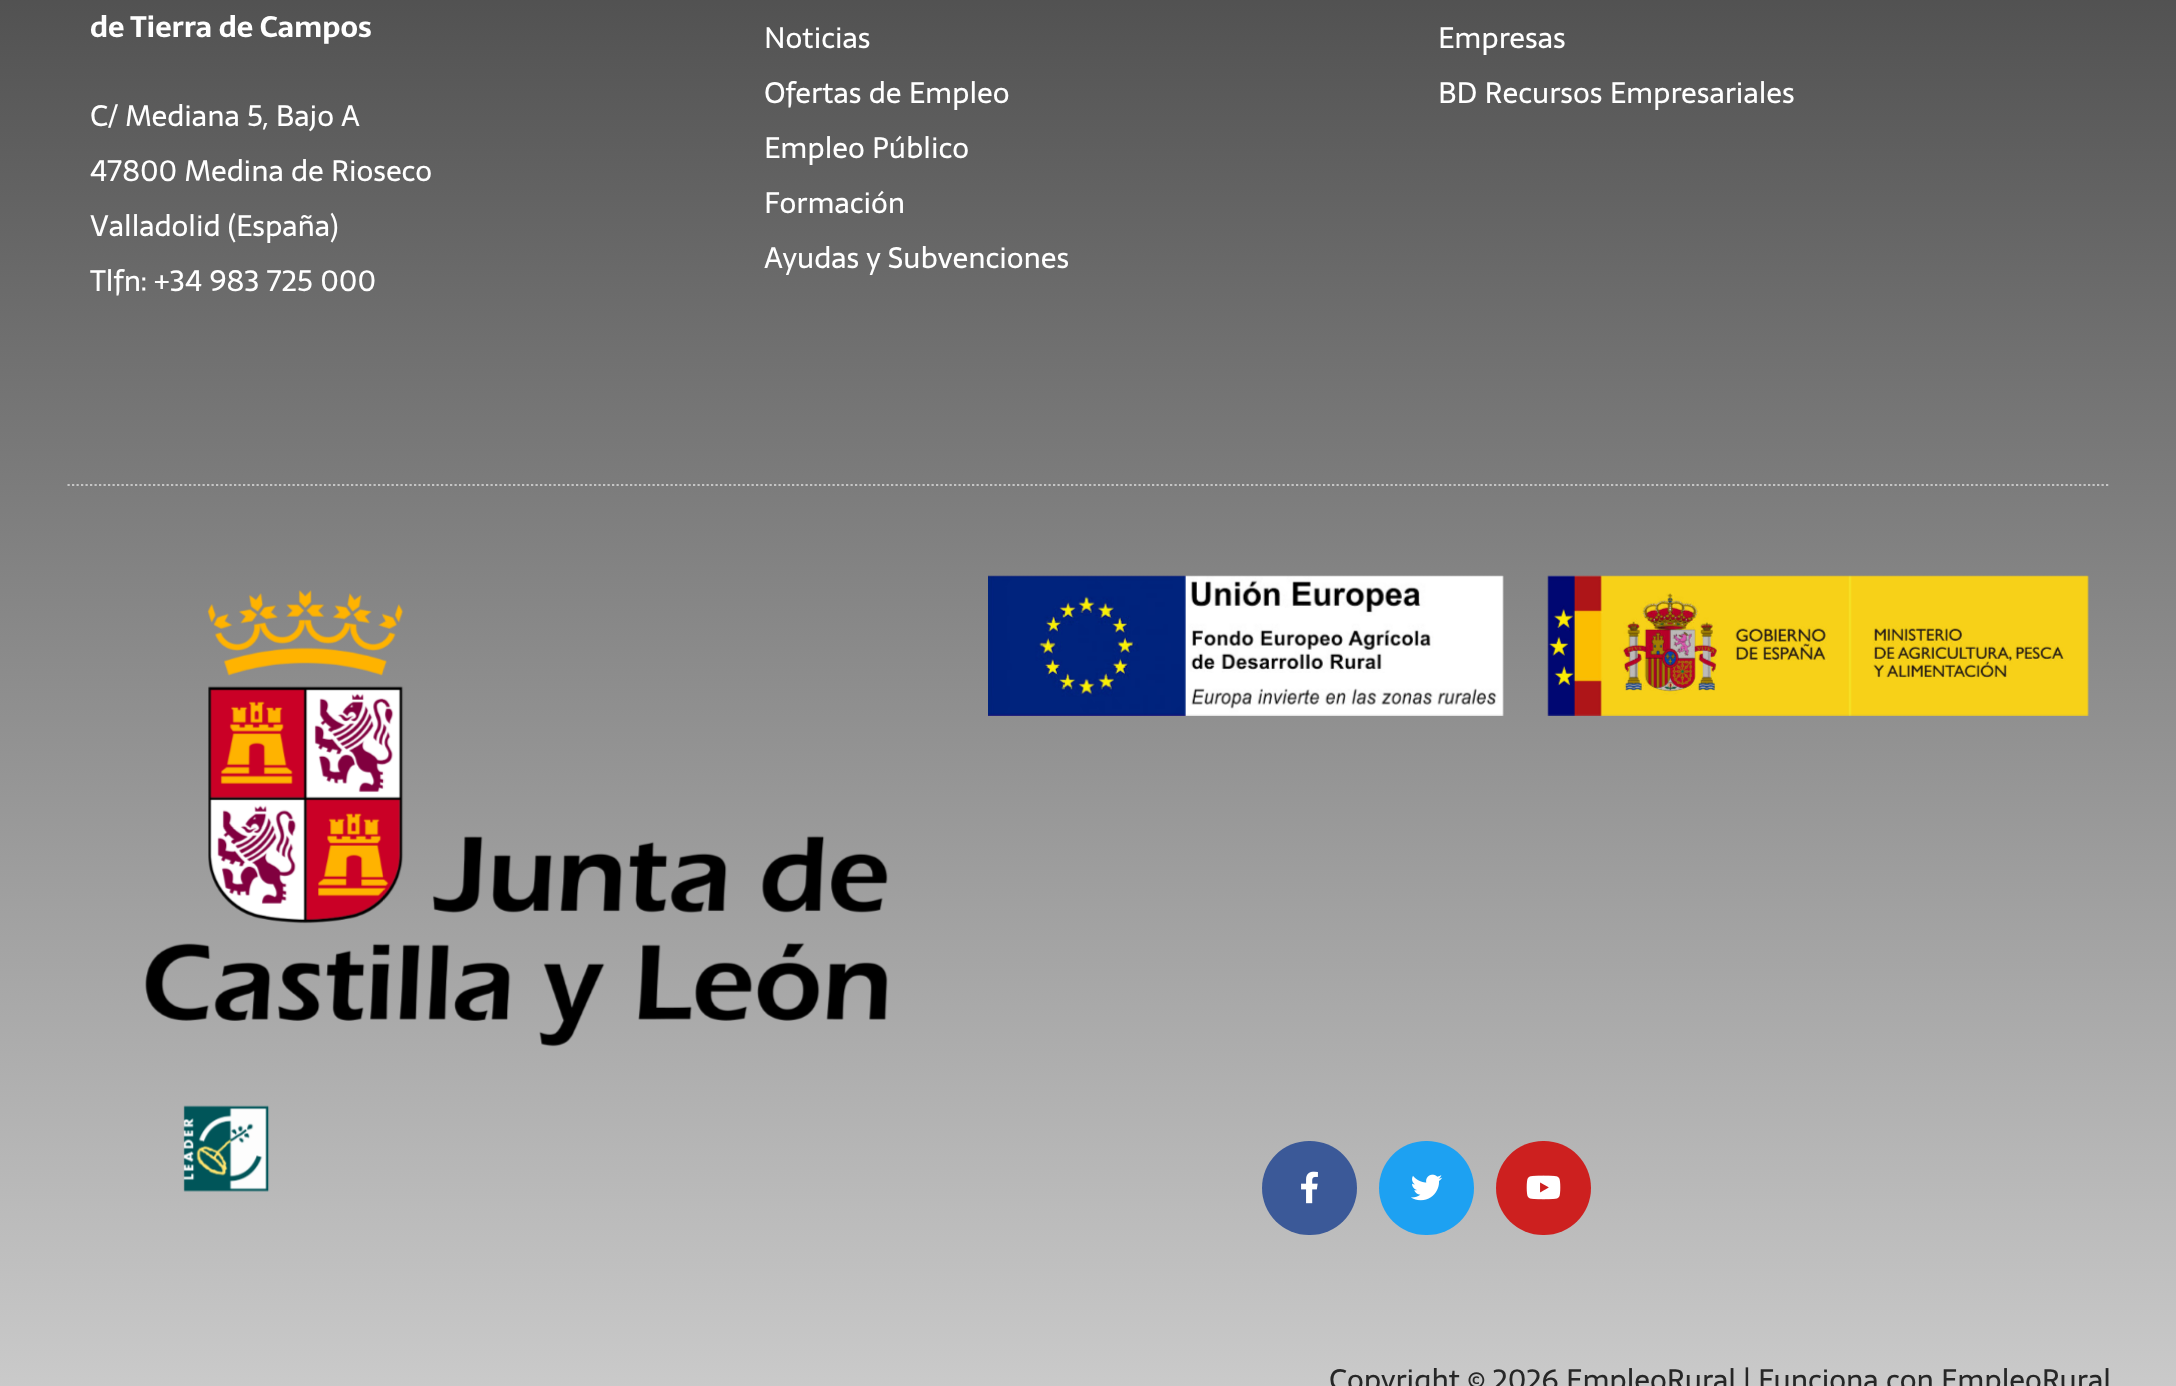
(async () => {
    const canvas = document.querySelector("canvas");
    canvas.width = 2176;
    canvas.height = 1386;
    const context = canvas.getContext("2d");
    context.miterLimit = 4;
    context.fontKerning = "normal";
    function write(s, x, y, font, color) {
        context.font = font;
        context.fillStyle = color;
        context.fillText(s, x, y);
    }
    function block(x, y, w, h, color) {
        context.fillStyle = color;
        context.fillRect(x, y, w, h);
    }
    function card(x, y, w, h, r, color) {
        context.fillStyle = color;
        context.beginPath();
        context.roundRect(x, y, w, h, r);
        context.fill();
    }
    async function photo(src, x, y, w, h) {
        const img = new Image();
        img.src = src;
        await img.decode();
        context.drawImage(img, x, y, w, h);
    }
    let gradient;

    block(0, 0, 2176, 1386, "rgb(255, 255, 255)");
    gradient = context.createLinearGradient(1089, 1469, 1089, -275);
    gradient.addColorStop(0, "rgb(209, 209, 209)");
    gradient.addColorStop(1, "rgb(58, 58, 58)");
    context.fillStyle = gradient;
    context.fillRect(0, 0, 2176, 1386);
    write("de Tierra de Campos", 90, 37, "bold 29.25px Sarala", "rgb(255, 255, 255)");
    write("C/ Mediana 5, Bajo A", 90, 126, "29.25px Sarala", "rgb(255, 255, 255)");
    write("47800 Medina de Rioseco", 90, 181, "29.25px Sarala", "rgb(255, 255, 255)");
    write("Valladolid (España)", 90, 236, "29.25px Sarala", "rgb(255, 255, 255)");
    write("Tlfn: +34 983 725 000", 90, 291, "29.25px Sarala", "rgb(255, 255, 255)");
    write("Noticias", 764, 48, "29.25px Sarala", "rgb(255, 255, 255)");
    write("Ofertas de Empleo", 764, 103, "29.25px Sarala", "rgb(255, 255, 255)");
    write("Empleo Público", 764, 158, "29.25px Sarala", "rgb(255, 255, 255)");
    write("Formación", 764, 213, "29.25px Sarala", "rgb(255, 255, 255)");
    write("Ayudas y Subvenciones", 764, 268, "29.25px Sarala", "rgb(255, 255, 255)");
    write("Empresas", 1438, 48, "29.25px Sarala", "rgb(255, 255, 255)");
    write("BD Recursos Empresariales", 1438, 103, "29.25px Sarala", "rgb(255, 255, 255)");
    context.beginPath();
    context.moveTo(67.5, 485);
    context.lineTo(2110.5, 485);
    context.strokeStyle = "rgb(197, 197, 197)";
    context.lineWidth = 2.2;
    context.setLineDash([2.25, 2.25]);
    context.stroke();
    await photo("media/1.png", 145, 590, 743, 457);
    await photo("media/2.png", 988, 575, 516, 141);
    await photo("media/3.png", 1547, 575, 542, 141);
    await photo("media/4.png", 183, 1105, 87, 87);
    card(1262, 1141, 95, 94, 47, "rgb(59, 89, 152)");
    await photo("media/5.png", 1301, 1171, 17, 33);
    card(1379, 1141, 95, 94, 47, "rgb(29, 161, 242)");
    await photo("media/6.png", 1411, 1174, 32, 27);
    card(1496, 1141, 95, 94, 47, "rgb(205, 32, 31)");
    await photo("media/7.png", 1526, 1175, 35, 25);
    write("Copyright © 2026 EmpleoRural | Funciona con EmpleoRural", 1329, 1390, "29.25px Sarala", "rgb(39, 39, 39)");
})();
